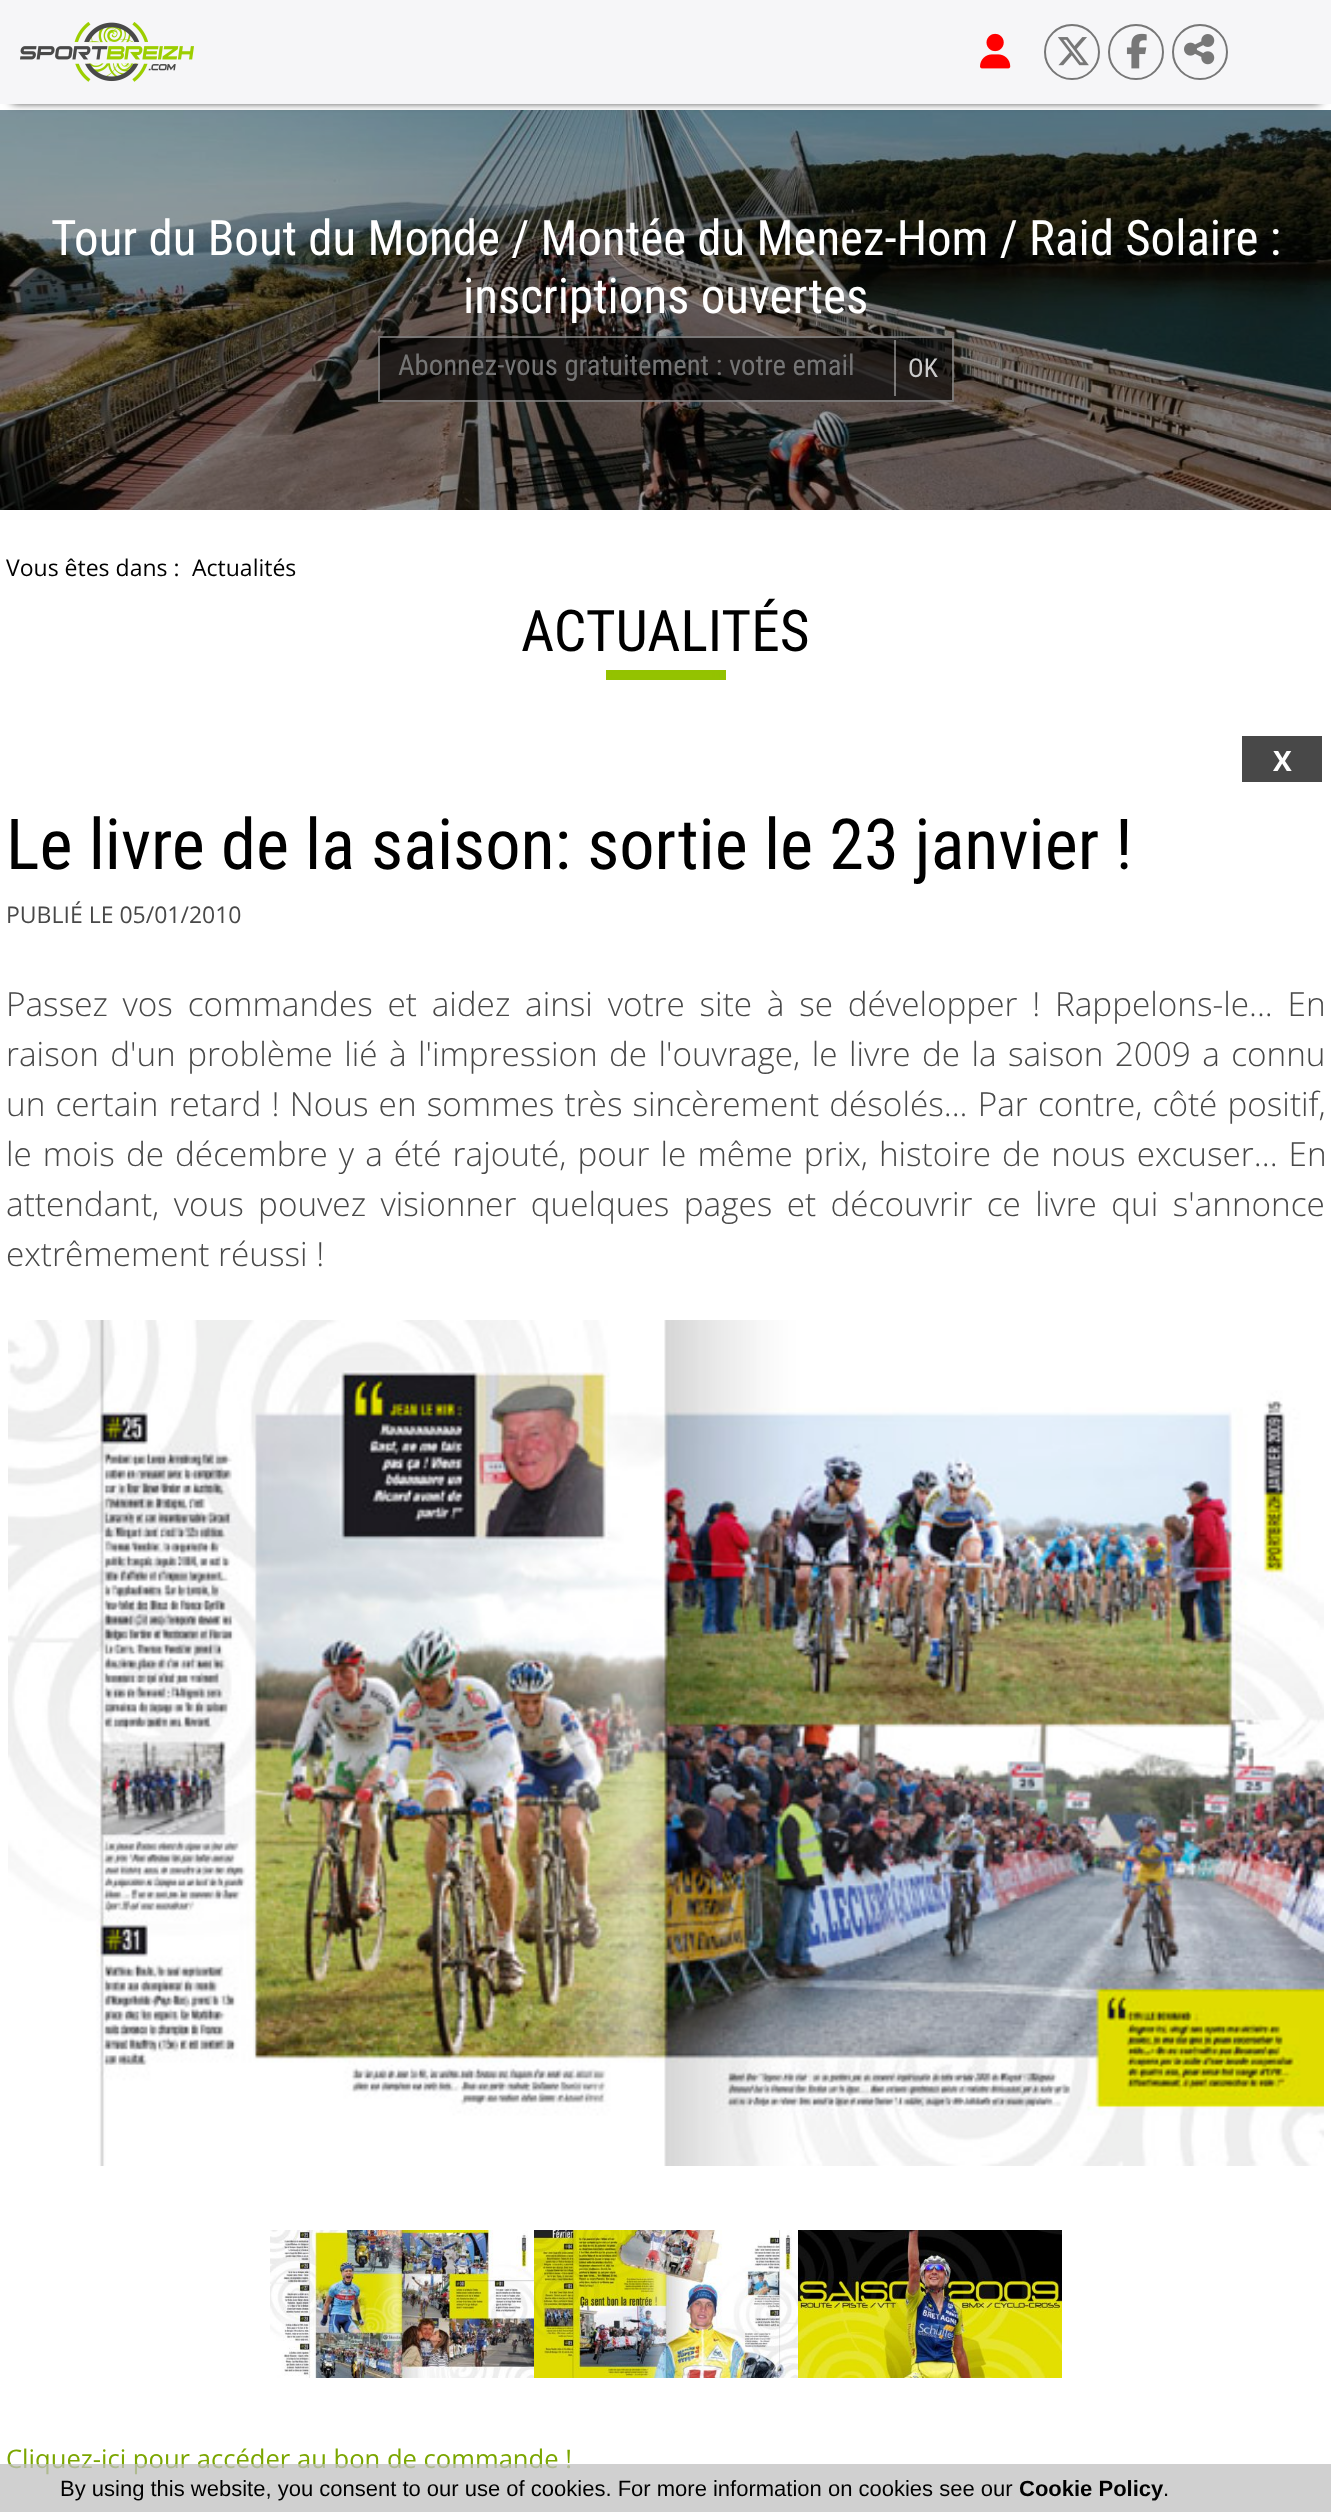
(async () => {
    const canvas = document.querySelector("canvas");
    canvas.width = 1331;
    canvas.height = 2512;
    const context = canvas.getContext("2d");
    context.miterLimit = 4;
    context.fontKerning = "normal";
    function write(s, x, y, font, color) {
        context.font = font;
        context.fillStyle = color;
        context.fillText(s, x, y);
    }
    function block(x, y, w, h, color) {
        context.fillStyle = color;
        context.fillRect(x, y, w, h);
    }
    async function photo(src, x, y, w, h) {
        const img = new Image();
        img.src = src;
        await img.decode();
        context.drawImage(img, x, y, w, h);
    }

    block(0, 0, 1331, 2512, "rgb(255, 255, 255)");
    await photo("media/6.png", 0, 110, 1331, 400);
    context.fillStyle = "rgb(0, 0, 0)";
    context.filter = "blur(5px)";
    context.beginPath();
    context.rect(12, 22, 1308, 80);
    context.fill();
    context.filter = "none";
    block(0, 0, 1331, 104, "rgb(246, 246, 248)");
    await photo("media/1.png", 20, 22, 174, 60);
    await photo("media/2.png", 980, 33, 31, 36);
    context.beginPath();
    context.arc(1072, 52, 27, 0, Math.PI * 2);
    context.strokeStyle = "rgb(119, 119, 119)";
    context.lineWidth = 2;
    context.stroke();
    await photo("media/3.png", 1058, 37, 31, 29);
    context.beginPath();
    context.arc(1136, 52, 27, 0, Math.PI * 2);
    context.stroke();
    await photo("media/4.png", 1126, 33, 21, 36);
    context.beginPath();
    context.arc(1200, 52, 27, 0, Math.PI * 2);
    context.stroke();
    await photo("media/5.png", 1184, 34, 31, 31);
    write("Tour du Bout du Monde / Montée du Menez-Hom / Raid Solaire :", 51, 255, "48.95px Roboto Condensed", "rgb(255, 255, 255)");
    write("inscriptions ouvertes", 463, 313, "48.95px Roboto Condensed", "rgb(255, 255, 255)");
    block(378, 336, 576, 66, "rgba(0, 0, 0, 0.65)");
    context.strokeStyle = "rgba(255, 255, 255, 0.4)";
    context.strokeRect(379, 337, 574, 64);
    write("Abonnez-vous gratuitement : votre email", 398, 375, "28.75px Roboto Condensed", "rgb(117, 117, 117)");
    block(894, 340, 2, 56, "rgba(255, 255, 255, 0.4)");
    write("OK", 908, 377, "26px Roboto Condensed", "rgb(204, 204, 204)");
    write("Vous êtes dans :", 6, 576, "23px Open Sans", "rgb(0, 0, 0)");
    write("Actualités", 192, 576, "23px Open Sans", "rgb(0, 0, 0)");
    await photo("media/7.png", 606, 670, 120, 10);
    write("ACTUALITÉS", 521, 651, "57.5px Roboto Condensed", "rgb(0, 0, 0)");
    block(1242, 736, 80, 46, "rgb(72, 72, 72)");
    write("X", 1273, 771, "bold 28px Open Sans", "rgb(255, 255, 255)");
    write("Le livre de la saison: sortie le 23 janvier !", 6, 869, "70.4px Roboto Condensed", "rgb(0, 0, 0)");
    write("PUBLIÉ LE 05/01/2010", 6, 923, "23px Open Sans", "rgb(72, 72, 72)");
    context.wordSpacing = "6.1px";
    write("Passez vos commandes et aidez ainsi votre site à se développer ! Rappelons-le... En", 6, 1016, "300 33.3px Open Sans", "rgb(72, 72, 72)");
    context.wordSpacing = "2.75px";
    write("raison d'un problème lié à l'impression de l'ouvrage, le livre de la saison 2009 a connu", 6, 1066, "300 33.3px Open Sans", "rgb(72, 72, 72)");
    context.wordSpacing = "1.5px";
    write("un certain retard ! Nous en sommes très sincèrement désolés... Par contre, côté positif,", 6, 1116, "300 33.3px Open Sans", "rgb(72, 72, 72)");
    context.wordSpacing = "2.4px";
    write("le mois de décembre y a été rajouté, pour le même prix, histoire de nous excuser... En", 6, 1166, "300 33.3px Open Sans", "rgb(72, 72, 72)");
    context.wordSpacing = "5.75px";
    write("attendant, vous pouvez visionner quelques pages et découvrir ce livre qui s'annonce", 6, 1216, "300 33.3px Open Sans", "rgb(72, 72, 72)");
    context.wordSpacing = "0px";
    write("extrêmement réussi !", 6, 1266, "300 33.3px Open Sans", "rgb(72, 72, 72)");
    await photo("media/8.png", 8, 1320, 1316, 846);
    await photo("media/9.png", 270, 2230, 264, 148);
    await photo("media/10.png", 534, 2230, 264, 148);
    await photo("media/11.png", 798, 2230, 264, 148);
    write("Cliquez-ici pour accéder au bon de commande !", 6, 2468, "25.6px Open Sans", "rgb(123, 166, 0)");
    block(0, 2464, 1331, 48, "rgba(192, 192, 192, 0.75)");
    write("By using this website, you consent to our use of cookies. For more information on cookies see our", 60, 2496, "22px Liberation Sans", "rgb(0, 0, 0)");
    write("Cookie Policy", 1019, 2496, "bold 22px Liberation Sans", "rgb(0, 0, 0)");
    write(".", 1163, 2496, "22px Liberation Sans", "rgb(0, 0, 0)");
})();
